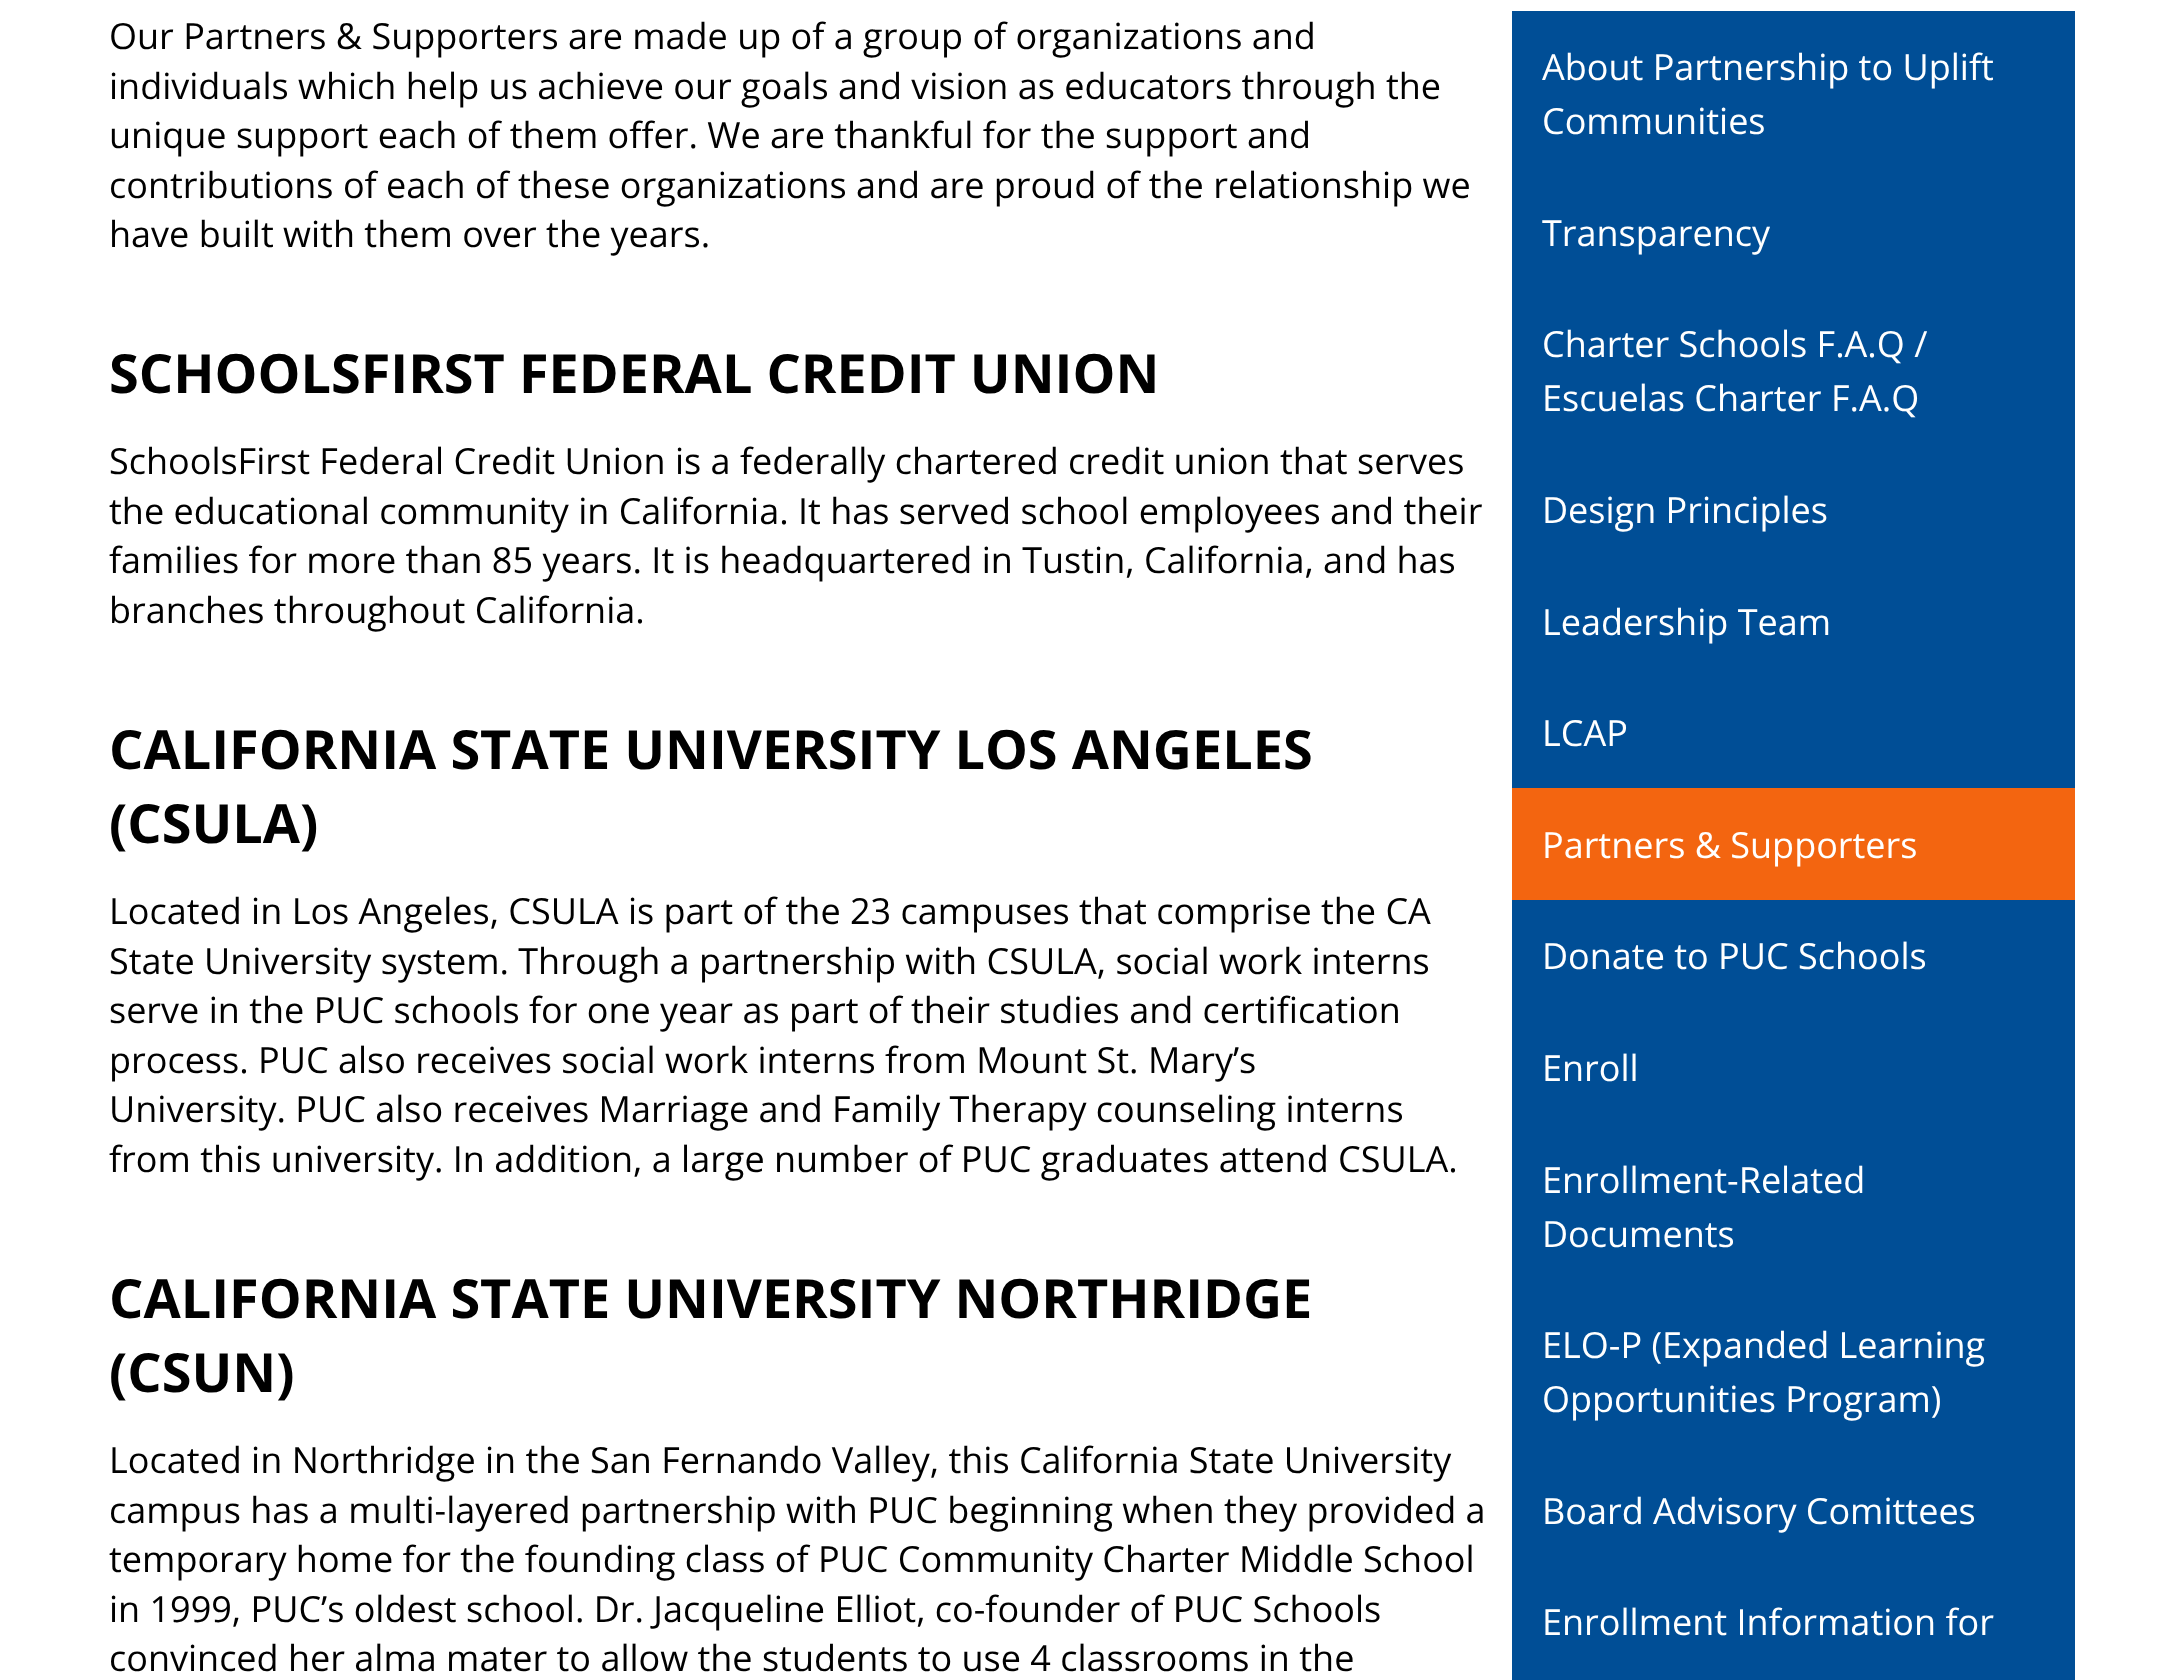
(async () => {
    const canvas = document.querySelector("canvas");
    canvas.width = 2183;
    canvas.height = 1680;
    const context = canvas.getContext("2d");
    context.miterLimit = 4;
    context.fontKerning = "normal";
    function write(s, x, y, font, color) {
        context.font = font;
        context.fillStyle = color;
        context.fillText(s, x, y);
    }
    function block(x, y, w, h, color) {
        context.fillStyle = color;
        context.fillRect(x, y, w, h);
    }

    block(0, 0, 2183, 1680, "rgb(255, 255, 255)");
    write("Our Partners & Supporters are made up of a group of organizations and", 109, 49, "36px Open Sans", "rgb(0, 0, 0)");
    write("individuals which help us achieve our goals and vision as educators through the", 109, 99, "36px Open Sans", "rgb(0, 0, 0)");
    write("unique support each of them offer. We are thankful for the support and", 109, 148, "36px Open Sans", "rgb(0, 0, 0)");
    write("contributions of each of these organizations and are proud of the relationship we", 109, 198, "36px Open Sans", "rgb(0, 0, 0)");
    write("have built with them over the years.", 109, 247, "36px Open Sans", "rgb(0, 0, 0)");
    write("SCHOOLSFIRST FEDERAL CREDIT UNION", 109, 393, "bold 54px Open Sans", "rgb(0, 0, 0)");
    write("SchoolsFirst Federal Credit Union is a federally chartered credit union that serves", 109, 474, "36px Open Sans", "rgb(0, 0, 0)");
    write("the educational community in California. It has served school employees and their", 109, 524, "36px Open Sans", "rgb(0, 0, 0)");
    write("families for more than 85 years. It is headquartered in Tustin, California, and has", 109, 573, "36px Open Sans", "rgb(0, 0, 0)");
    write("branches throughout California.", 109, 623, "36px Open Sans", "rgb(0, 0, 0)");
    write("CALIFORNIA STATE UNIVERSITY LOS ANGELES", 109, 769, "bold 54px Open Sans", "rgb(0, 0, 0)");
    write("(CSULA)", 109, 843, "bold 54px Open Sans", "rgb(0, 0, 0)");
    write("Located in Los Angeles, CSULA is part of the 23 campuses that comprise the CA", 109, 924, "36px Open Sans", "rgb(0, 0, 0)");
    write("State University system. Through a partnership with CSULA, social work interns", 109, 974, "36px Open Sans", "rgb(0, 0, 0)");
    write("serve in the PUC schools for one year as part of their studies and certification", 109, 1023, "36px Open Sans", "rgb(0, 0, 0)");
    write("process. PUC also receives social work interns from Mount St. Mary’s", 109, 1073, "36px Open Sans", "rgb(0, 0, 0)");
    write("University. PUC also receives Marriage and Family Therapy counseling interns", 109, 1122, "36px Open Sans", "rgb(0, 0, 0)");
    write("from this university. In addition, a large number of PUC graduates attend CSULA.", 109, 1172, "36px Open Sans", "rgb(0, 0, 0)");
    write("CALIFORNIA STATE UNIVERSITY NORTHRIDGE", 109, 1318, "bold 54px Open Sans", "rgb(0, 0, 0)");
    write("(CSUN)", 109, 1392, "bold 54px Open Sans", "rgb(0, 0, 0)");
    write("Located in Northridge in the San Fernando Valley, this California State University", 109, 1473, "36px Open Sans", "rgb(0, 0, 0)");
    write("campus has a multi-layered partnership with PUC beginning when they provided a", 109, 1523, "36px Open Sans", "rgb(0, 0, 0)");
    write("temporary home for the founding class of PUC Community Charter Middle School", 109, 1572, "36px Open Sans", "rgb(0, 0, 0)");
    write("in 1999, PUC’s oldest school. Dr. Jacqueline Elliot, co-founder of PUC Schools", 109, 1622, "36px Open Sans", "rgb(0, 0, 0)");
    write("convinced her alma mater to allow the students to use 4 classrooms in the", 109, 1671, "36px Open Sans", "rgb(0, 0, 0)");
    block(1512, 11, 563, 1669, "rgb(0, 78, 150)");
    write("About Partnership to Uplift", 1542, 80, "36px Open Sans", "rgb(255, 255, 255)");
    write("Communities", 1542, 134, "36px Open Sans", "rgb(255, 255, 255)");
    write("Transparency", 1542, 246, "36px Open Sans", "rgb(255, 255, 255)");
    write("Charter Schools F.A.Q /", 1542, 357, "36px Open Sans", "rgb(255, 255, 255)");
    write("Escuelas Charter F.A.Q", 1542, 411, "36px Open Sans", "rgb(255, 255, 255)");
    write("Design Principles", 1542, 523, "36px Open Sans", "rgb(255, 255, 255)");
    write("Leadership Team", 1542, 635, "36px Open Sans", "rgb(255, 255, 255)");
    write("LCAP", 1542, 746, "36px Open Sans", "rgb(255, 255, 255)");
    block(1512, 788, 563, 112, "rgb(243, 101, 16)");
    write("Partners & Supporters", 1542, 858, "36px Open Sans", "rgb(255, 255, 255)");
    write("Donate to PUC Schools", 1542, 969, "36px Open Sans", "rgb(255, 255, 255)");
    write("Enroll", 1542, 1081, "36px Open Sans", "rgb(255, 255, 255)");
    write("Enrollment-Related", 1542, 1193, "36px Open Sans", "rgb(255, 255, 255)");
    write("Documents", 1542, 1247, "36px Open Sans", "rgb(255, 255, 255)");
    write("ELO-P (Expanded Learning", 1542, 1358, "36px Open Sans", "rgb(255, 255, 255)");
    write("Opportunities Program)", 1542, 1412, "36px Open Sans", "rgb(255, 255, 255)");
    write("Board Advisory Comittees", 1542, 1524, "36px Open Sans", "rgb(255, 255, 255)");
    write("Enrollment Information for", 1542, 1635, "36px Open Sans", "rgb(255, 255, 255)");
})();
